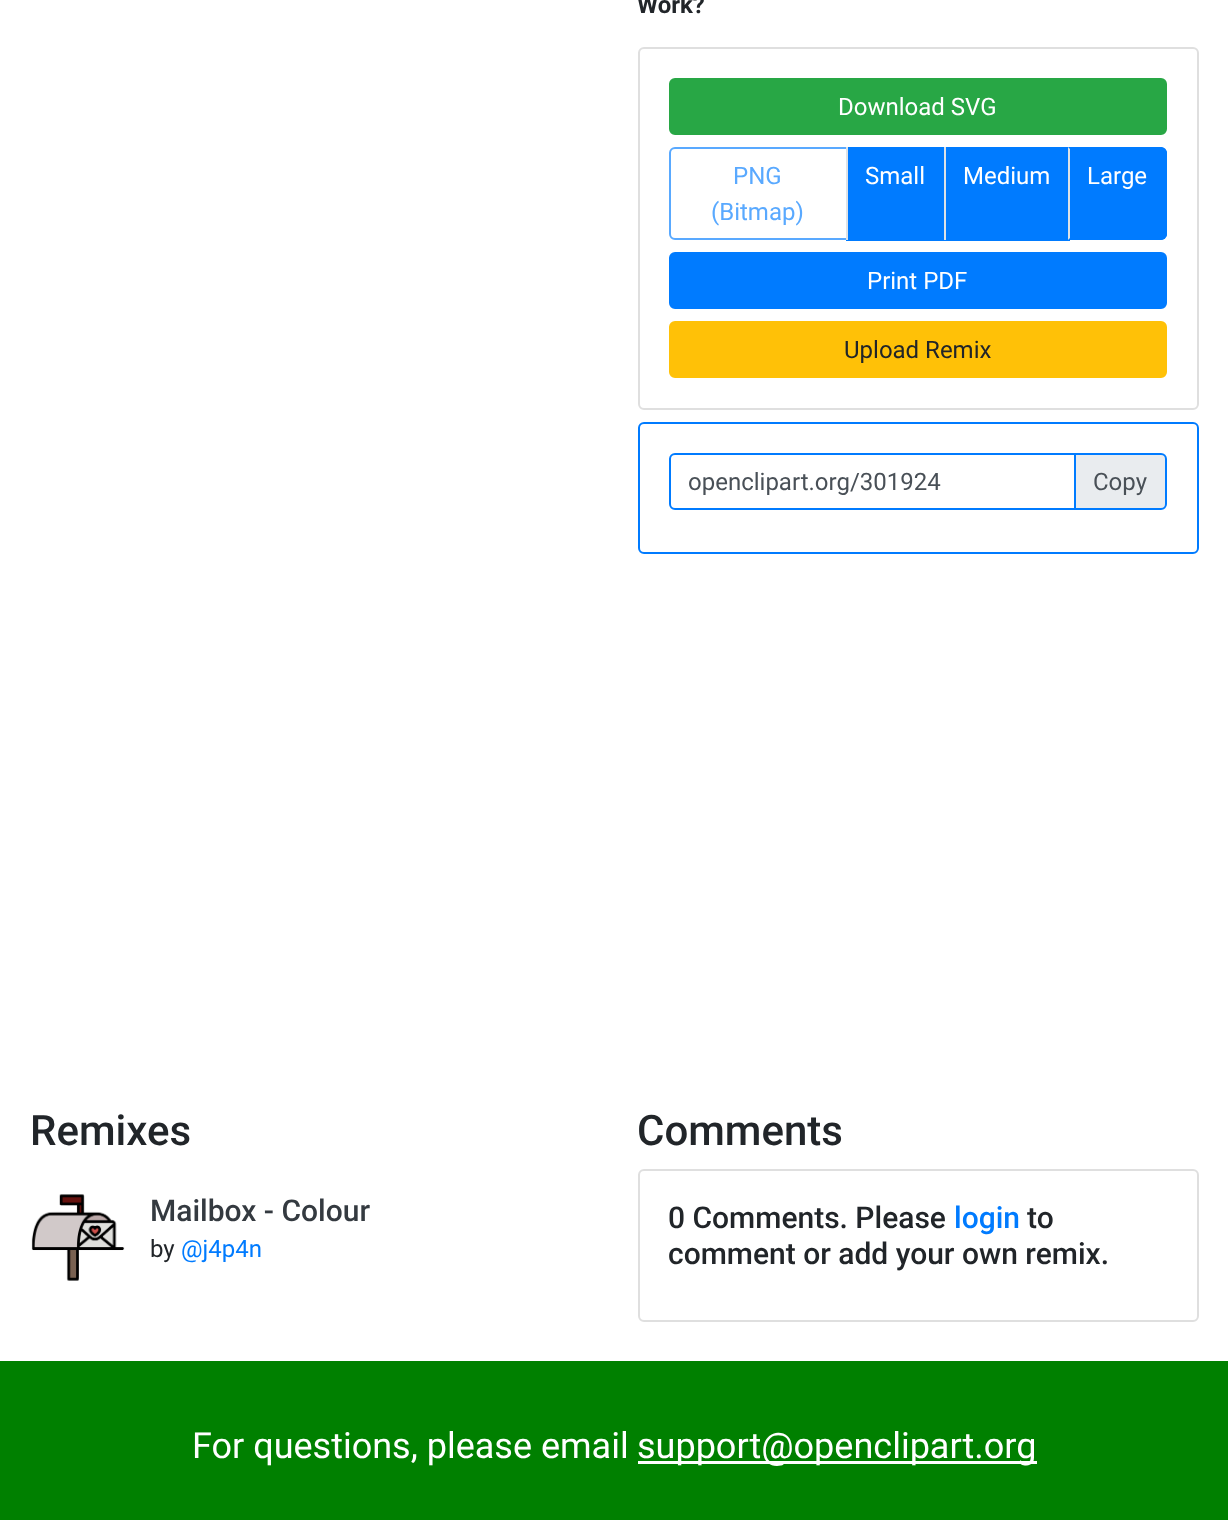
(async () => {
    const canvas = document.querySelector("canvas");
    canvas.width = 1228;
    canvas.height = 1520;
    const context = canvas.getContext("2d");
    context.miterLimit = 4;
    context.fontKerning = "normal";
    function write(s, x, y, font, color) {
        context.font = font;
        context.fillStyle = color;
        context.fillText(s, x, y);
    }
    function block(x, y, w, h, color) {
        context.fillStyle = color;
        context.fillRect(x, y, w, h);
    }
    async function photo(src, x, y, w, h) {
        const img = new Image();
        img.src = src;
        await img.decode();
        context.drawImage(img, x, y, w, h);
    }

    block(0, 0, 1228, 1520, "rgb(255, 255, 255)");
    write("Work?", 637, 13, "bold 24px Roboto", "rgb(33, 37, 41)");
    context.beginPath();
    context.roundRect(639, 48, 559, 361, 5);
    context.strokeStyle = "rgb(223, 223, 223)";
    context.lineWidth = 2;
    context.stroke();
    context.fillStyle = "rgb(40, 167, 69)";
    context.beginPath();
    context.roundRect(670, 79, 496, 55, 5);
    context.fill();
    context.strokeStyle = "rgb(40, 167, 69)";
    context.stroke();
    write("Download SVG", 838, 115, "24px Roboto", "rgb(255, 255, 255)");
    context.beginPath();
    context.roundRect(670, 148, 177, 91, [5, 0, 0, 5]);
    context.strokeStyle = "rgb(89, 169, 255)";
    context.stroke();
    write("PNG", 733, 184, "24px Roboto", "rgb(89, 169, 255)");
    write("(Bitmap)", 711, 220, "24px Roboto", "rgb(89, 169, 255)");
    block(848, 147, 96, 92, "rgb(0, 123, 255)");
    block(846, 239, 224, 2, "rgb(0, 123, 255)");
    block(846, 147, 2, 93, "rgb(222, 226, 230)");
    write("Small", 865, 184, "24px Roboto", "rgb(255, 255, 255)");
    block(946, 147, 122, 92, "rgb(0, 123, 255)");
    block(944, 147, 2, 93, "rgb(222, 226, 230)");
    write("Medium", 963, 184, "24px Roboto", "rgb(255, 255, 255)");
    context.fillStyle = "rgb(0, 123, 255)";
    context.beginPath();
    context.roundRect(1068, 147, 99, 93, [0, 6, 6, 0]);
    context.fill();
    context.beginPath();
    context.moveTo(1068, 147);
    context.lineTo(1070, 149);
    context.lineTo(1070, 148);
    context.lineTo(1161, 148);
    context.lineTo(1164, 150);
    context.lineTo(1165, 149);
    context.bezierCurveTo(1164, 148, 1162, 147, 1161, 147);
    context.closePath();
    context.fill();
    context.beginPath();
    context.moveTo(1167, 234);
    context.lineTo(1167, 152);
    context.lineTo(1165, 149);
    context.lineTo(1164, 150);
    context.lineTo(1166, 153);
    context.lineTo(1166, 234);
    context.lineTo(1164, 237);
    context.lineTo(1165, 238);
    context.bezierCurveTo(1166, 237, 1167, 236, 1167, 234);
    context.closePath();
    context.fill();
    context.beginPath();
    context.moveTo(1161, 240);
    context.bezierCurveTo(1162, 240, 1164, 239, 1165, 238);
    context.lineTo(1164, 237);
    context.lineTo(1161, 238);
    context.lineTo(1070, 238);
    context.lineTo(1068, 240);
    context.closePath();
    context.fill();
    context.fillStyle = "rgb(222, 226, 230)";
    context.beginPath();
    context.moveTo(1068, 147);
    context.lineTo(1068, 240);
    context.lineTo(1070, 238);
    context.lineTo(1070, 149);
    context.closePath();
    context.fill();
    write("Large", 1087, 184, "24px Roboto", "rgb(255, 255, 255)");
    context.fillStyle = "rgb(0, 123, 255)";
    context.beginPath();
    context.roundRect(670, 253, 496, 55, 5);
    context.fill();
    context.strokeStyle = "rgb(0, 123, 255)";
    context.stroke();
    write("Print PDF", 867, 289, "24px Roboto", "rgb(255, 255, 255)");
    context.fillStyle = "rgb(255, 193, 7)";
    context.beginPath();
    context.roundRect(670, 322, 496, 55, 5);
    context.fill();
    context.strokeStyle = "rgb(255, 193, 7)";
    context.stroke();
    write("Upload Remix", 844, 358, "24px Roboto", "rgb(33, 37, 41)");
    context.beginPath();
    context.roundRect(639, 423, 559, 130, 5);
    context.strokeStyle = "rgb(0, 123, 255)";
    context.stroke();
    context.beginPath();
    context.roundRect(670, 454, 405, 55, [5, 0, 0, 5]);
    context.stroke();
    context.save();
    context.beginPath();
    context.rect(689, 468, 367, 29);
    context.clip();
    write("openclipart.org/301924", 688, 490, "24px Roboto", "rgb(73, 80, 87)");
    context.restore();
    context.fillStyle = "rgb(233, 236, 239)";
    context.beginPath();
    context.roundRect(1075, 454, 91, 55, [0, 5, 5, 0]);
    context.fill();
    context.stroke();
    write("Copy", 1093, 490, "24px Roboto", "rgb(73, 80, 87)");
    write("Remixes", 30, 1145, "500 42px Roboto", "rgb(33, 37, 41)");
    await photo("media/1.png", 31, 1194, 94, 87);
    write("Mailbox - Colour", 150, 1221, "500 30px Roboto", "rgb(52, 58, 64)");
    write("by", 150, 1257, "24px Roboto", "rgb(33, 37, 41)");
    write("@j4p4n", 181, 1257, "24px Roboto", "rgb(0, 123, 255)");
    write("Comments", 637, 1145, "500 42px Roboto", "rgb(33, 37, 41)");
    context.beginPath();
    context.roundRect(639, 1170, 559, 151, 5);
    context.strokeStyle = "rgb(223, 223, 223)";
    context.stroke();
    write("0 Comments. Please", 668, 1228, "500 30px Roboto", "rgb(33, 37, 41)");
    write("login", 954, 1228, "500 30px Roboto", "rgb(0, 123, 255)");
    write("to", 1027, 1228, "500 30px Roboto", "rgb(33, 37, 41)");
    write("comment or add your own remix.", 668, 1264, "500 30px Roboto", "rgb(33, 37, 41)");
    block(0, 1361, 1228, 159, "rgb(0, 128, 0)");
    write("For questions, please email", 192, 1458, "36px Roboto", "rgb(255, 255, 255)");
    block(638, 1461, 399, 3, "rgb(255, 255, 255)");
    write("support@openclipart.org", 637, 1458, "36px Roboto", "rgb(255, 255, 255)");
})();
